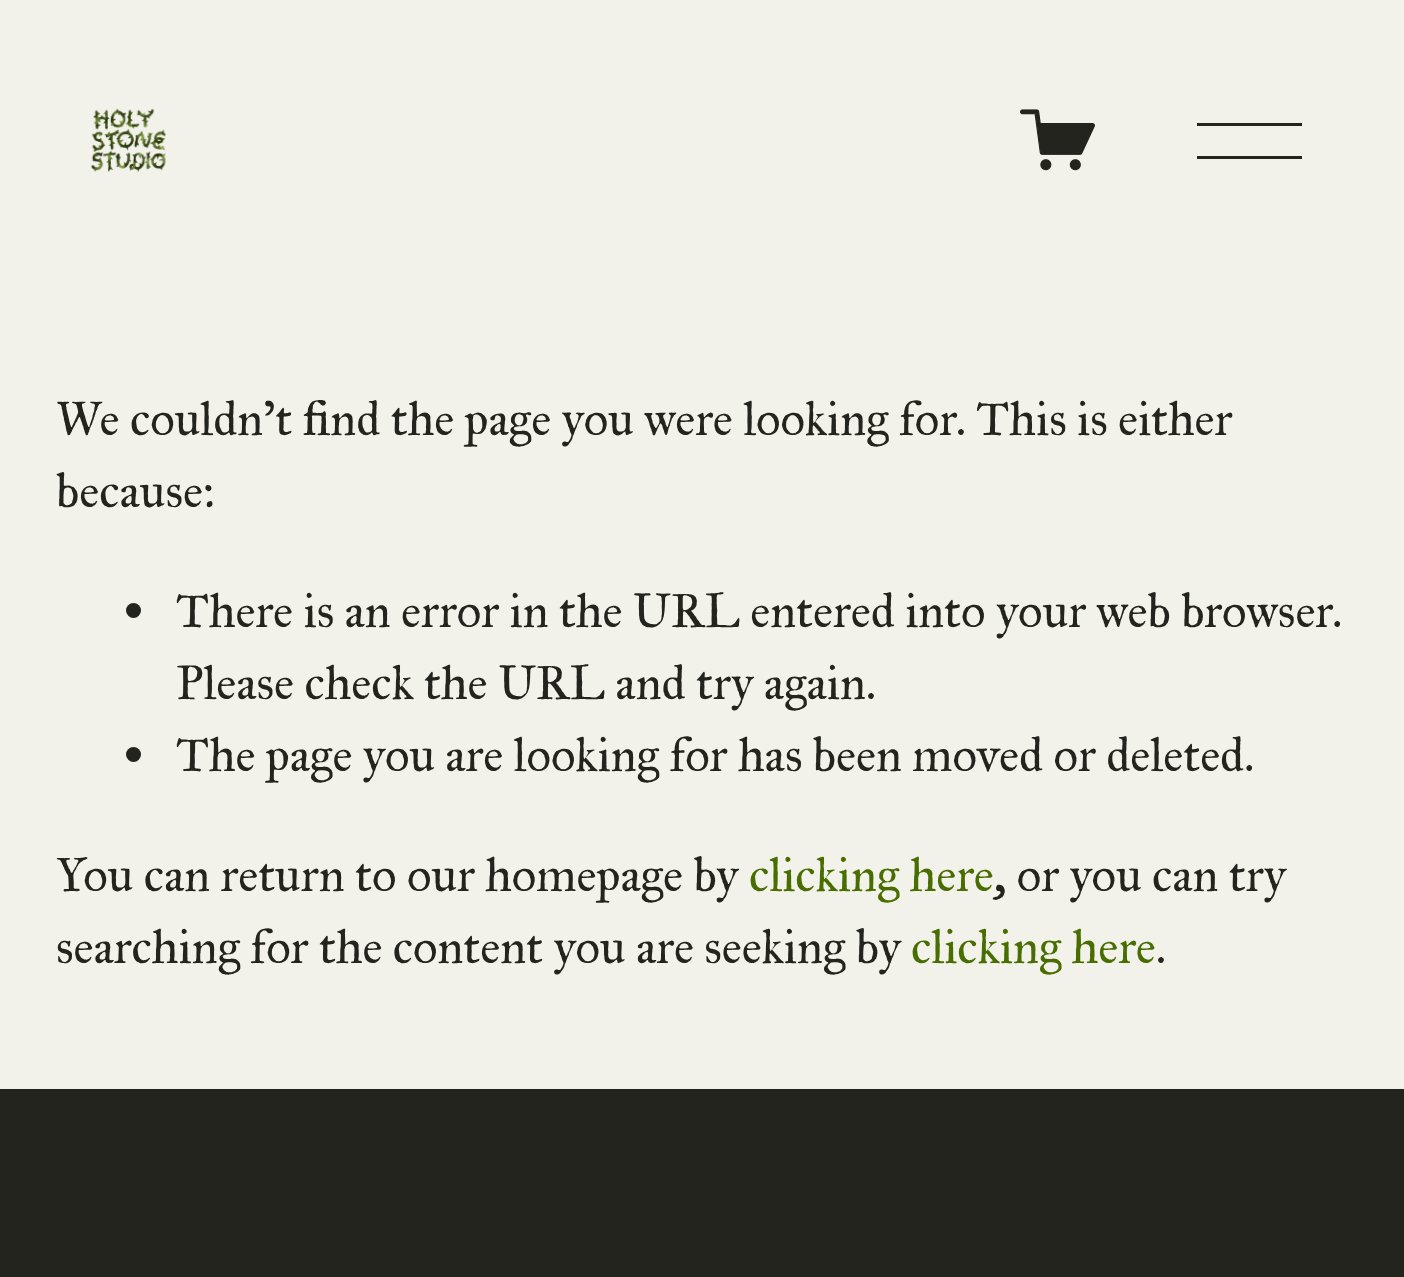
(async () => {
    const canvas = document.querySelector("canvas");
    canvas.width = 1404;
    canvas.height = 1277;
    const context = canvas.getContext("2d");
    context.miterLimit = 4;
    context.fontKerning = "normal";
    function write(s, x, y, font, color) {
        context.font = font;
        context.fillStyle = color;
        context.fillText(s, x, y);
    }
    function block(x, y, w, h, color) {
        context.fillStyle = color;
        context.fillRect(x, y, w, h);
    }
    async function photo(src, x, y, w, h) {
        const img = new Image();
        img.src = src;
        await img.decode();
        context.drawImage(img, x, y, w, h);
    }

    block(0, 0, 1404, 1277, "rgb(242, 242, 235)");
    await photo("media/1.png", 90, 108, 76, 64);
    await photo("media/2.png", 1020, 109, 75, 62);
    block(1197, 123, 105, 3, "rgb(35, 36, 30)");
    block(1197, 156, 105, 3, "rgb(35, 36, 30)");
    write("We couldn't find the page you were looking for. This is either", 56, 435, "48px IM FELL Great Primer", "rgb(35, 36, 30)");
    write("because:", 56, 507, "48px IM FELL Great Primer", "rgb(35, 36, 30)");
    context.beginPath();
    context.arc(133.5, 610.5, 7.5, 0, Math.PI * 2);
    context.fill();
    write("There is an error in the URL entered into your web browser.", 176, 627, "48px IM FELL Great Primer", "rgb(35, 36, 30)");
    write("Please check the URL and try again.", 176, 699, "48px IM FELL Great Primer", "rgb(35, 36, 30)");
    context.beginPath();
    context.arc(133.5, 754.5, 7.5, 0, Math.PI * 2);
    context.fill();
    write("The page you are looking for has been moved or deleted.", 176, 771, "48px IM FELL Great Primer", "rgb(35, 36, 30)");
    write("You can return to our homepage by", 56, 891, "48px IM FELL Great Primer", "rgb(35, 36, 30)");
    write("clicking here", 749, 891, "48px IM FELL Great Primer", "rgb(72, 109, 0)");
    write(", or you can try", 994, 891, "48px IM FELL Great Primer", "rgb(35, 36, 30)");
    write("searching for the content you are seeking by", 56, 963, "48px IM FELL Great Primer", "rgb(35, 36, 30)");
    write("clicking here", 911, 963, "48px IM FELL Great Primer", "rgb(72, 109, 0)");
    write(".", 1156, 963, "48px IM FELL Great Primer", "rgb(35, 36, 30)");
    block(0, 1089, 1404, 188, "rgb(35, 36, 30)");
})();
